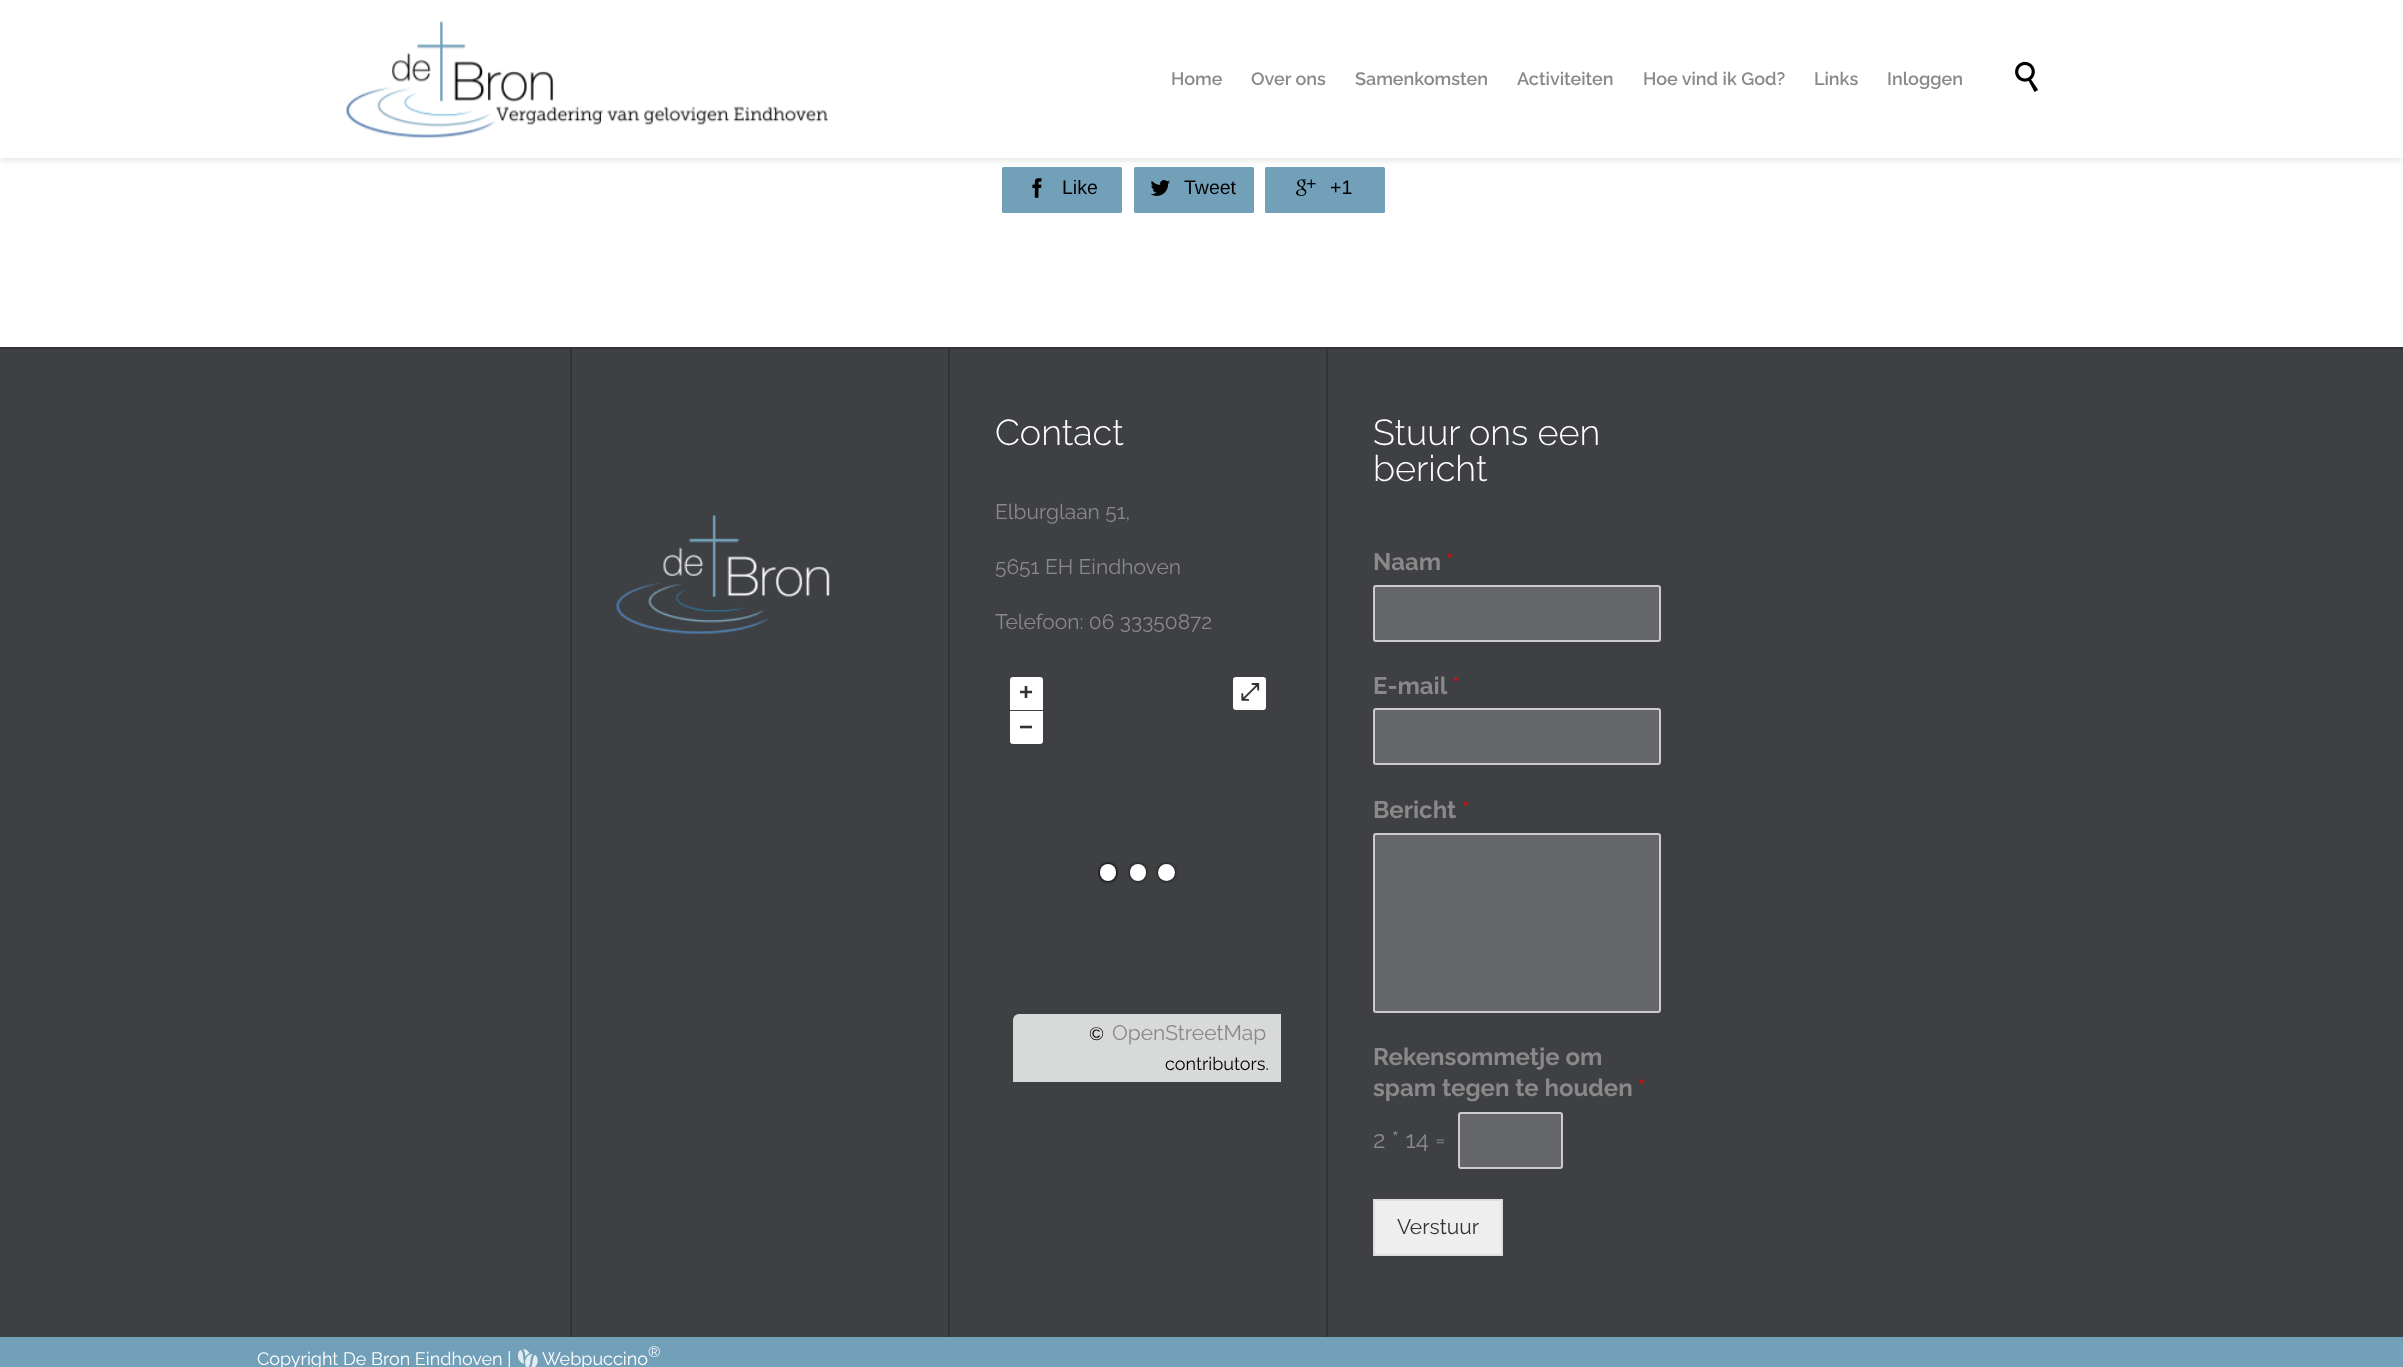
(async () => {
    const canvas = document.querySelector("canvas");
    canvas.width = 2403;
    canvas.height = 1367;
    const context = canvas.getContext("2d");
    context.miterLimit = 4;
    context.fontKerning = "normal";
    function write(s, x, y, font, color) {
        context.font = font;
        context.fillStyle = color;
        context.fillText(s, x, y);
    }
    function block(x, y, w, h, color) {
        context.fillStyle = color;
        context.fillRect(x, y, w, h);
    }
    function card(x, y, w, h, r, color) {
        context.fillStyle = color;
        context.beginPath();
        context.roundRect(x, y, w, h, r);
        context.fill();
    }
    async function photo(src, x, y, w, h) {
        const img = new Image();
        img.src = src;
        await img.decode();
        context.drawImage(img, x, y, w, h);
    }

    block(0, 0, 2403, 1367, "rgb(115, 160, 185)");
    block(0, 158, 2403, 189, "rgb(255, 255, 255)");
    card(1002, 167, 120, 46, 1.5, "rgb(115, 160, 185)");
    card(1134, 167, 120, 46, 1.5, "rgb(115, 160, 185)");
    card(1265, 167, 120, 46, 1.5, "rgb(115, 160, 185)");
    context.fillStyle = "rgba(0, 0, 0, 0.09)";
    context.filter = "blur(3px)";
    context.beginPath();
    context.rect(0, 3, 2403, 158);
    context.fill();
    context.filter = "none";
    block(0, 0, 2403, 158, "rgb(255, 255, 255)");
    await photo("media/1.png", 346, 21, 482, 118);
    write("Home", 1171, 85, "600 18px Raleway", "rgb(137, 137, 137)");
    write("Over ons", 1251, 85, "600 18px Raleway", "rgb(137, 137, 137)");
    write("Samenkomsten", 1355, 85, "600 18px Raleway", "rgb(137, 137, 137)");
    write("Activiteiten", 1517, 85, "600 18px Raleway", "rgb(137, 137, 137)");
    write("Hoe vind ik God?", 1643, 85, "600 18px Raleway", "rgb(137, 137, 137)");
    write("Links", 1814, 85, "600 18px Raleway", "rgb(137, 137, 137)");
    write("Inloggen", 1887, 85, "600 18px Raleway", "rgb(137, 137, 137)");
    await photo("media/2.png", 2015, 61, 23, 31);
    await photo("media/3.png", 1032, 178, 10, 20);
    write("Like", 1062, 194, "19.5px Liberation Sans", "rgb(0, 0, 0)");
    await photo("media/4.png", 1150, 180, 20, 16);
    write("Tweet", 1184, 194, "19.5px Liberation Sans", "rgb(0, 0, 0)");
    await photo("media/5.png", 1296, 179, 20, 17);
    write("+1", 1330, 194, "19.5px Liberation Sans", "rgb(0, 0, 0)");
    block(0, 349, 2403, 988, "rgb(62, 64, 67)");
    block(0, 347, 2403, 2, "rgb(50, 51, 54)");
    block(570, 348, 2, 989, "rgb(50, 51, 54)");
    block(948, 348, 2, 989, "rgb(50, 51, 54)");
    await photo("media/6.png", 616, 515, 214, 119);
    block(1326, 348, 2, 989, "rgb(50, 51, 54)");
    write("Contact", 995, 445, "300 36px Raleway", "rgb(255, 255, 255)");
    write("Elburglaan 51,", 995, 519, "21px Raleway", "rgb(137, 137, 137)");
    write("5651 EH Eindhoven", 995, 574, "21px Raleway", "rgb(137, 137, 137)");
    write("Telefoon: 06 33350872", 995, 629, "21px Raleway", "rgb(137, 137, 137)");
    context.fillStyle = "rgb(255, 255, 255)";
    context.beginPath();
    context.roundRect(1010, 677, 33, 33, [3, 3, 0, 0]);
    context.fill();
    write("+", 1019, 700, "bold 24px Liberation Sans", "rgb(51, 51, 51)");
    context.fillStyle = "rgb(255, 255, 255)";
    context.beginPath();
    context.roundRect(1010, 711, 33, 33, [0, 0, 3, 3]);
    context.fill();
    write("−", 1019, 735, "bold 24px Liberation Sans", "rgb(51, 51, 51)");
    card(1233, 677, 33, 33, 3, "rgb(255, 255, 255)");
    write("⤢", 1240, 700, "bold 24px FreeSerif", "rgb(51, 51, 51)");
    context.fillStyle = "rgb(216, 217, 217)";
    context.beginPath();
    context.roundRect(1013, 1014, 268, 68, [6, 0, 0, 0]);
    context.fill();
    write("©", 1089, 1040, "18px Raleway", "rgb(0, 0, 0)");
    write("OpenStreetMap", 1112, 1040, "21px Raleway", "rgb(137, 137, 137)");
    write("contributors.", 1165, 1070, "18px Raleway", "rgb(0, 0, 0)");
    context.filter = "blur(1.5px)";
    context.beginPath();
    context.roundRect(1100, 864, 16, 17, 8);
    context.fill();
    context.filter = "none";
    context.filter = "blur(1.5px)";
    context.beginPath();
    context.roundRect(1100, 864, 16, 17, 8);
    context.fill();
    context.filter = "none";
    card(1100, 864, 16, 17, 8, "rgb(255, 255, 255)");
    context.fillStyle = "rgb(0, 0, 0)";
    context.filter = "blur(1.5px)";
    context.beginPath();
    context.roundRect(1130, 864, 16, 17, 8);
    context.fill();
    context.filter = "none";
    card(1130, 864, 16, 17, 8, "rgb(255, 255, 255)");
    context.fillStyle = "rgb(0, 0, 0)";
    context.filter = "blur(1.5px)";
    context.beginPath();
    context.roundRect(1158, 864, 17, 17, 8.5);
    context.fill();
    context.filter = "none";
    context.fillStyle = "rgb(255, 255, 255)";
    context.beginPath();
    context.arc(1166.5, 872.5, 8.5, 0, Math.PI * 2);
    context.fill();
    write("Stuur ons een", 1373, 445, "300 36px Raleway", "rgb(255, 255, 255)");
    write("bericht", 1373, 481, "300 36px Raleway", "rgb(255, 255, 255)");
    write("Naam", 1373, 570, "bold 24px Raleway", "rgb(137, 137, 137)");
    write("*", 1446, 570, "24px Raleway", "rgb(255, 0, 0)");
    context.fillStyle = "rgb(101, 102, 105)";
    context.beginPath();
    context.roundRect(1374, 586, 286, 55, 2);
    context.fill();
    context.strokeStyle = "rgb(204, 204, 204)";
    context.lineWidth = 2;
    context.stroke();
    write("E-mail", 1373, 694, "bold 24px Raleway", "rgb(137, 137, 137)");
    write("*", 1452, 694, "24px Raleway", "rgb(255, 0, 0)");
    context.fillStyle = "rgb(101, 102, 105)";
    context.beginPath();
    context.roundRect(1374, 709, 286, 55, 2);
    context.fill();
    context.stroke();
    write("Bericht", 1373, 818, "bold 24px Raleway", "rgb(137, 137, 137)");
    write("*", 1462, 818, "24px Raleway", "rgb(255, 0, 0)");
    context.fillStyle = "rgb(101, 102, 105)";
    context.beginPath();
    context.roundRect(1374, 834, 286, 178, 2);
    context.fill();
    context.stroke();
    write("Rekensommetje om", 1373, 1065, "bold 24px Raleway", "rgb(137, 137, 137)");
    write("spam tegen te houden", 1373, 1096, "bold 24px Raleway", "rgb(137, 137, 137)");
    write("*", 1638, 1096, "24px Raleway", "rgb(255, 0, 0)");
    write("2 * 14 =", 1373, 1148, "24px Raleway", "rgb(137, 137, 137)");
    context.fillStyle = "rgb(101, 102, 105)";
    context.beginPath();
    context.roundRect(1459, 1113, 103, 55, 2);
    context.fill();
    context.stroke();
    context.fillStyle = "rgb(238, 238, 238)";
    context.beginPath();
    context.rect(1374, 1200, 128, 55);
    context.fill();
    context.strokeStyle = "rgb(221, 221, 221)";
    context.stroke();
    write("Verstuur", 1397, 1234, "21px Raleway", "rgb(51, 51, 51)");
    write("Copyright De Bron Eindhoven |", 257, 1365, "18px Raleway", "rgb(255, 255, 255)");
    await photo("media/7.png", 518, 1349, 20, 18);
    write("Webpuccino", 542, 1365, "18px Raleway", "rgb(255, 255, 255)");
    write("®", 648, 1357, "15px Raleway", "rgb(255, 255, 255)");
})();
